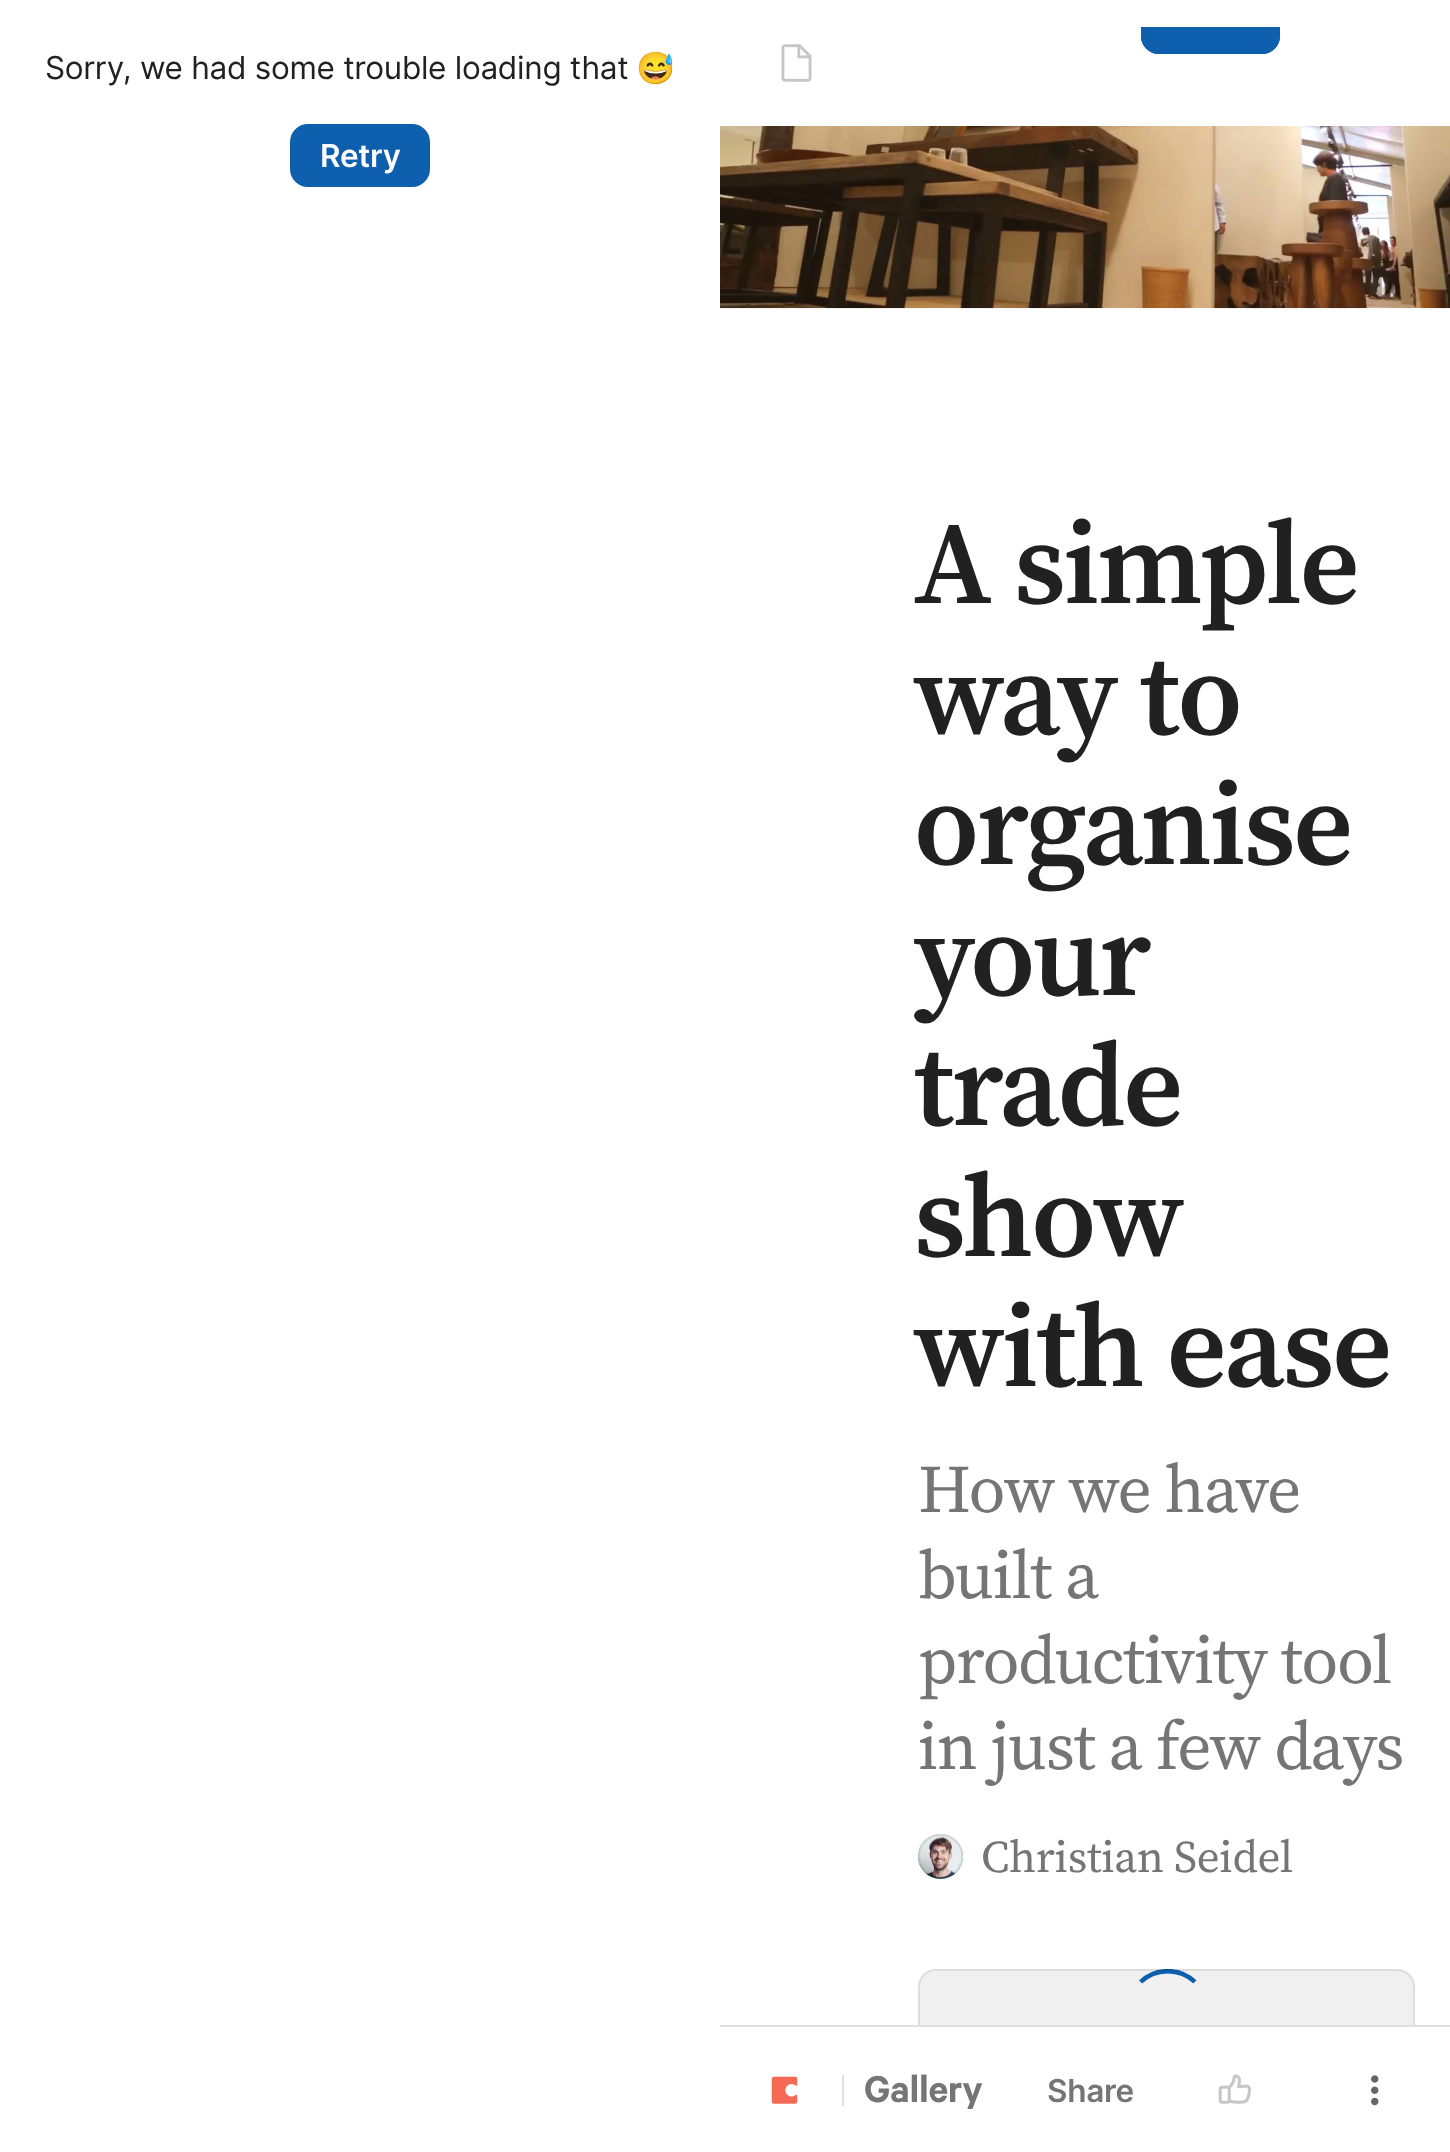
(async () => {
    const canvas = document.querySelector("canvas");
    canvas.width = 1450;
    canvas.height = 2152;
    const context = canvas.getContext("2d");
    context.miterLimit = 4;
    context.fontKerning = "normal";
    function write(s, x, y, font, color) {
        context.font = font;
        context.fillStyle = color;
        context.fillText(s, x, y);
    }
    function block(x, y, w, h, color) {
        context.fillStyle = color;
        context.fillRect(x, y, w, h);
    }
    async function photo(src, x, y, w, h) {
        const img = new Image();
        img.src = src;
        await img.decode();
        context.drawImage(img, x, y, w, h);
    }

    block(0, 0, 1450, 2152, "rgb(255, 255, 255)");
    context.letterSpacing = "-0.3px";
    write("Sorry, we had some trouble loading that", 45, 79, "31.5px Inter", "rgb(33, 33, 33)");
    write("😅", 636, 79, "31.5px Noto Color Emoji", "rgb(33, 33, 33)");
    context.fillStyle = "rgb(15, 95, 175)";
    context.beginPath();
    context.roundRect(291, 125, 138, 61, 17);
    context.fill();
    context.strokeStyle = "rgb(15, 95, 175)";
    context.lineWidth = 2;
    context.stroke();
    write("Retry", 320, 167, "600 31.5px Inter", "rgb(255, 255, 255)");
    context.fillStyle = "rgb(15, 95, 175)";
    context.beginPath();
    context.roundRect(1141, 27, 139, 27, [0, 0, 18, 18]);
    context.fill();
    context.save();
    context.beginPath();
    context.rect(1010, 27, 401, 72);
    context.clip();
    context.beginPath();
    context.roundRect(1142, -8, 137, 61, 17);
    context.stroke();
    context.restore();
    await photo("media/1.png", 781, 44, 31, 38);
    await photo("media/2.png", 720, 126, 730, 183);
    context.letterSpacing = "-2.25px";
    write("A simple", 914, 603, "600 117px 'Source Serif 4'", "rgb(33, 33, 33)");
    write("way to", 914, 734, "600 117px 'Source Serif 4'", "rgb(33, 33, 33)");
    write("organise", 914, 864, "600 117px 'Source Serif 4'", "rgb(33, 33, 33)");
    write("your", 914, 995, "600 117px 'Source Serif 4'", "rgb(33, 33, 33)");
    write("trade", 914, 1125, "600 117px 'Source Serif 4'", "rgb(33, 33, 33)");
    write("show", 914, 1256, "600 117px 'Source Serif 4'", "rgb(33, 33, 33)");
    write("with ease", 914, 1386, "600 117px 'Source Serif 4'", "rgb(33, 33, 33)");
    context.letterSpacing = "-1.4px";
    write("How we have", 918, 1512, "67.5px 'Source Serif 4'", "rgb(117, 117, 117)");
    write("built a", 918, 1598, "67.5px 'Source Serif 4'", "rgb(117, 117, 117)");
    write("productivity tool", 918, 1683, "67.5px 'Source Serif 4'", "rgb(117, 117, 117)");
    write("in just a few days", 918, 1769, "67.5px 'Source Serif 4'", "rgb(117, 117, 117)");
    context.fillStyle = "rgb(46, 150, 75)";
    context.beginPath();
    context.arc(940.5, 1856.5, 22.5, 0, Math.PI * 2);
    context.fill();
    await photo("media/3.png", 918, 1834, 45, 45);
    context.beginPath();
    context.arc(940.5, 1856.5, 21.5, 0, Math.PI * 2);
    context.strokeStyle = "rgba(0, 0, 0, 0.08)";
    context.stroke();
    context.letterSpacing = "-0.3px";
    write("Christian Seidel", 981, 1872, "45px 'Source Serif 4'", "rgb(117, 117, 117)");
    context.fillStyle = "rgb(240, 240, 240)";
    context.beginPath();
    context.roundRect(918, 1969, 497, 56, [18, 18, 0, 0]);
    context.fill();
    context.save();
    context.beginPath();
    context.roundRect(918, 1969, 497, 112, 18);
    context.clip();
    context.beginPath();
    context.moveTo(1140.5, 1982);
    context.bezierCurveTo(1155.5, 1967.5, 1180, 1967.5, 1195, 1982);
    context.strokeStyle = "rgb(15, 95, 175)";
    context.lineWidth = 4.5;
    context.stroke();
    context.restore();
    context.save();
    context.beginPath();
    context.rect(720, 126, 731, 1899);
    context.clip();
    context.beginPath();
    context.moveTo(1195, 1982);
    context.bezierCurveTo(1204, 1991, 1207.5, 2004.5, 1205.5, 2016.5);
    context.bezierCurveTo(1196.5, 2061.5, 1129.5, 2055, 1129.5, 2009);
    context.bezierCurveTo(1129.5, 1999, 1133.5, 1989.5, 1140.5, 1982);
    context.strokeStyle = "rgb(240, 240, 240)";
    context.lineWidth = 4.5;
    context.stroke();
    context.restore();
    block(720, 2025, 730, 2, "rgb(224, 224, 224)");
    await photo("media/6.png", 1371, 2075, 8, 31);
    context.save();
    context.beginPath();
    context.rect(720, 126, 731, 1899);
    context.clip();
    context.beginPath();
    context.roundRect(919, 1970, 495, 110, 17);
    context.stroke();
    context.restore();
    await photo("media/4.png", 771, 2076, 27, 28);
    block(842, 2075, 2, 31, "rgb(224, 224, 224)");
    write("Gallery", 864, 2102, "600 36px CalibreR", "rgb(117, 117, 117)");
    write("Share", 1047, 2102, "600 31.5px Inter", "rgb(117, 117, 117)");
    await photo("media/5.png", 1218, 2074, 33, 30);
})();
